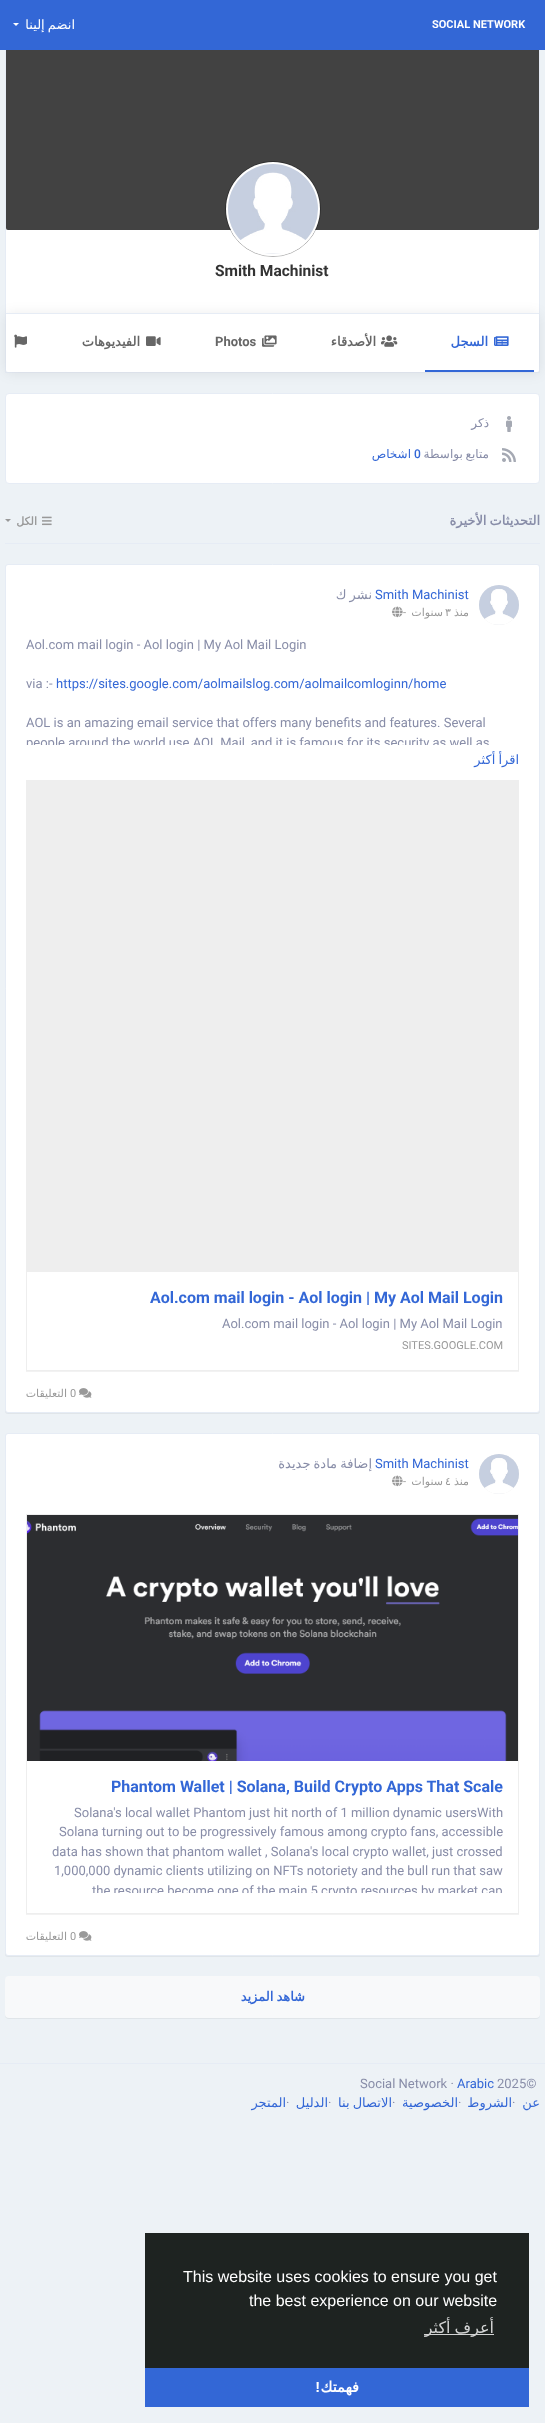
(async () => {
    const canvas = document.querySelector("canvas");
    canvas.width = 545;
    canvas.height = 2423;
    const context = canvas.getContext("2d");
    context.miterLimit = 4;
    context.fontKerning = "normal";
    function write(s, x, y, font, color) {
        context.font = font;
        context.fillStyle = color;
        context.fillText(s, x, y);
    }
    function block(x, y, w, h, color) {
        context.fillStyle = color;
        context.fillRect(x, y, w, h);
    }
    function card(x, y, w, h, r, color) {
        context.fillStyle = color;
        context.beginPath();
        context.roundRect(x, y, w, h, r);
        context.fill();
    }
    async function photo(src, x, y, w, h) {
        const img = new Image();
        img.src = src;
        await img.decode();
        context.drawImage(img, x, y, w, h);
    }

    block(0, 0, 545, 2423, "rgb(237, 242, 246)");
    block(0, 0, 545, 50, "rgb(51, 103, 214)");
    context.fillStyle = "rgb(255, 255, 255)";
    context.beginPath();
    context.moveTo(13, 23);
    context.lineTo(19, 23);
    context.lineTo(16, 26);
    context.closePath();
    context.fill();
    context.wordSpacing = "-1px";
    context.direction = "rtl";
    write("انضم إلينا", 75, 29, "13px DejaVu Sans", "rgb(255, 255, 255)");
    context.wordSpacing = "0px";
    context.direction = "ltr";
    write("SOCIAL NETWORK", 432, 28, "bold 11px Roboto", "rgb(255, 255, 255)");
    block(539, 50, 1, 323, "rgb(230, 236, 245)");
    block(5, 372, 535, 1, "rgb(230, 236, 245)");
    block(5, 50, 1, 323, "rgb(230, 236, 245)");
    context.fillStyle = "rgb(66, 66, 66)";
    context.beginPath();
    context.roundRect(6, 50, 533, 180, [0, 0, 2, 2]);
    context.fill();
    block(6, 230, 533, 83, "rgb(255, 255, 255)");
    context.beginPath();
    context.arc(273, 209, 47.5, 0, Math.PI * 2);
    context.strokeStyle = "rgba(0, 0, 0, 0.3)";
    context.stroke();
    context.beginPath();
    context.arc(273, 209, 47, 0, Math.PI * 2);
    context.fill();
    await photo("media/1.png", 228, 164, 90, 90);
    write("Smith Machinist", 215, 276, "bold 15.5px Roboto", "rgb(51, 51, 51)");
    context.fillStyle = "rgba(0, 0, 0, 0.08)";
    context.filter = "blur(6.5px)";
    context.beginPath();
    context.roundRect(6, 314, 533, 59, 2);
    context.fill();
    context.filter = "none";
    context.fillStyle = "rgb(255, 255, 255)";
    context.beginPath();
    context.roundRect(6, 313, 533, 59, [0, 0, 2, 2]);
    context.fill();
    block(6, 313, 533, 1, "rgb(230, 236, 245)");
    await photo("media/2.png", 14, 334, 13, 14);
    context.direction = "rtl";
    write("الفيديوهات", 140, 346, "bold 13px DejaVu Sans", "rgb(102, 102, 102)");
    await photo("media/3.png", 146, 336, 15, 10);
    context.direction = "ltr";
    write("Photos", 215, 346, "bold 13px Roboto", "rgb(102, 102, 102)");
    await photo("media/4.png", 262, 335, 15, 12);
    context.direction = "rtl";
    write("الأصدقاء", 376, 346, "bold 13px DejaVu Sans", "rgb(102, 102, 102)");
    await photo("media/5.png", 381, 335, 17, 12);
    block(425, 370, 109, 2, "rgb(51, 103, 214)");
    write("السجل", 488, 346, "bold 13px DejaVu Sans", "rgb(51, 103, 214)");
    await photo("media/6.png", 494, 336, 15, 10);
    context.fillStyle = "rgb(255, 255, 255)";
    context.beginPath();
    context.roundRect(5.5, 393.5, 534, 90, 3.5);
    context.fill();
    context.strokeStyle = "rgb(230, 236, 245)";
    context.stroke();
    write("ذكر", 489, 427, "12px DejaVu Sans", "rgb(136, 141, 168)");
    await photo("media/7.png", 506, 416, 6, 16);
    write("اشخاص", 411, 458, "12px DejaVu Sans", "rgb(51, 103, 214)");
    context.direction = "ltr";
    write("0", 414, 458, "500 12px Roboto", "rgb(51, 103, 214)");
    context.wordSpacing = "-1px";
    context.direction = "rtl";
    write("متابع بواسطة", 489, 458, "12px DejaVu Sans", "rgb(136, 141, 168)");
    await photo("media/8.png", 502, 448, 14, 14);
    block(5, 543, 535, 1, "rgb(230, 236, 245)");
    context.fillStyle = "rgb(153, 153, 153)";
    context.beginPath();
    context.moveTo(5, 519);
    context.lineTo(11, 519);
    context.lineTo(8, 522);
    context.closePath();
    context.fill();
    context.wordSpacing = "0px";
    write("الكل", 37, 525, "bold 11px DejaVu Sans", "rgb(153, 153, 153)");
    await photo("media/9.png", 42, 516, 10, 10);
    context.wordSpacing = "-1px";
    write("التحديثات الأخيرة", 540, 525, "bold 13px DejaVu Sans", "rgb(136, 141, 168)");
    context.fillStyle = "rgba(0, 0, 0, 0.05)";
    context.filter = "blur(0.5px)";
    context.beginPath();
    context.roundRect(5, 565, 535, 849, 3);
    context.fill();
    context.filter = "none";
    context.fillStyle = "rgb(255, 255, 255)";
    context.beginPath();
    context.roundRect(5.5, 564.5, 534, 848, 2.5);
    context.fill();
    context.stroke();
    write("نشر ك", 372, 599, "13px DejaVu Sans", "rgb(136, 141, 168)");
    context.wordSpacing = "0px";
    context.direction = "ltr";
    write("Smith Machinist", 375, 599, "13px Roboto", "rgb(51, 103, 214)");
    write("-", 403, 616, "11px Roboto", "rgb(153, 153, 153)");
    await photo("media/10.png", 392, 606, 11, 12);
    context.direction = "rtl";
    write("سنوات", 443, 616, "11px DejaVu Sans", "rgb(153, 153, 153)");
    context.direction = "ltr";
    write("٣", 445, 616, "11px DejaVu Sans", "rgb(153, 153, 153)");
    context.direction = "rtl";
    write("منذ", 469, 616, "11px DejaVu Sans", "rgb(153, 153, 153)");
    context.fillStyle = "rgb(238, 238, 238)";
    context.beginPath();
    context.arc(499, 605, 20, 0, Math.PI * 2);
    context.fill();
    await photo("media/11.png", 479, 585, 40, 40);
    context.direction = "ltr";
    write("Aol.com mail login - Aol login | My Aol Mail Login", 26, 649, "13px Roboto", "rgb(136, 141, 168)");
    write("via :-", 26, 688, "13px Roboto", "rgb(136, 141, 168)");
    write("https://sites.google.com/aolmailslog.com/aolmailcomloginn/home", 56, 688, "13px Roboto", "rgb(51, 103, 214)");
    write("AOL is an amazing email service that offers many benefits and features. Several", 26, 727, "13px Roboto", "rgb(136, 141, 168)");
    context.save();
    context.beginPath();
    context.rect(26, 635, 493, 110);
    context.clip();
    write("people around the world use AOL Mail, and it is famous for its security as well as", 26, 747, "13px Roboto", "rgb(136, 141, 168)");
    context.restore();
    context.wordSpacing = "-1px";
    context.direction = "rtl";
    write("اقرأ أكثر", 519, 764, "13px DejaVu Sans", "rgb(51, 103, 214)");
    context.save();
    context.beginPath();
    context.rect(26, 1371, 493, 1);
    context.clip();
    context.fillStyle = "rgba(0, 0, 0, 0.05)";
    context.filter = "blur(0.5px)";
    context.beginPath();
    context.rect(26, 781, 493, 591);
    context.fill();
    context.filter = "none";
    context.restore();
    context.strokeStyle = "rgb(238, 238, 238)";
    context.strokeRect(26.5, 780.5, 492, 590);
    block(27, 781, 491, 491, "rgb(238, 238, 238)");
    context.wordSpacing = "0px";
    context.direction = "ltr";
    write("Aol.com mail login - Aol login | My Aol Mail Login", 150, 1303, "bold 16px Roboto", "rgb(51, 103, 214)");
    write("Aol.com mail login - Aol login | My Aol Mail Login", 222, 1328, "13px Roboto", "rgb(136, 141, 168)");
    write("SITES.GOOGLE.COM", 402, 1349, "11px Roboto", "rgb(153, 153, 153)");
    context.direction = "rtl";
    write("التعليقات", 67, 1397, "11px DejaVu Sans", "rgb(153, 153, 153)");
    context.direction = "ltr";
    write("0", 70, 1397, "11px Roboto", "rgb(153, 153, 153)");
    await photo("media/12.png", 79, 1388, 13, 10);
    context.fillStyle = "rgba(0, 0, 0, 0.05)";
    context.filter = "blur(0.5px)";
    context.beginPath();
    context.roundRect(5, 1434, 535, 523, 3);
    context.fill();
    context.filter = "none";
    context.fillStyle = "rgb(255, 255, 255)";
    context.beginPath();
    context.roundRect(5.5, 1433.5, 534, 522, 2.5);
    context.fill();
    context.strokeStyle = "rgb(230, 236, 245)";
    context.stroke();
    context.wordSpacing = "-1px";
    context.direction = "rtl";
    write("إضافة مادة جديدة", 372, 1468, "13px DejaVu Sans", "rgb(136, 141, 168)");
    context.wordSpacing = "0px";
    context.direction = "ltr";
    write("Smith Machinist", 375, 1468, "13px Roboto", "rgb(51, 103, 214)");
    write("-", 403, 1485, "11px Roboto", "rgb(153, 153, 153)");
    await photo("media/10.png", 392, 1475, 11, 12);
    context.direction = "rtl";
    write("سنوات", 443, 1485, "11px DejaVu Sans", "rgb(153, 153, 153)");
    context.direction = "ltr";
    write("٤", 445, 1485, "11px DejaVu Sans", "rgb(153, 153, 153)");
    context.direction = "rtl";
    write("منذ", 469, 1485, "11px DejaVu Sans", "rgb(153, 153, 153)");
    context.fillStyle = "rgb(238, 238, 238)";
    context.beginPath();
    context.arc(499, 1474, 20, 0, Math.PI * 2);
    context.fill();
    await photo("media/11.png", 479, 1454, 40, 40);
    context.save();
    context.beginPath();
    context.rect(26, 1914, 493, 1);
    context.clip();
    context.fillStyle = "rgba(0, 0, 0, 0.05)";
    context.filter = "blur(0.5px)";
    context.beginPath();
    context.rect(26, 1515, 493, 400);
    context.fill();
    context.filter = "none";
    context.restore();
    context.strokeStyle = "rgb(238, 238, 238)";
    context.strokeRect(26.5, 1514.5, 492, 399);
    await photo("media/13.png", 27, 1515, 491, 246);
    context.direction = "ltr";
    write("Phantom Wallet | Solana, Build Crypto Apps That Scale", 111, 1792, "bold 16px Roboto", "rgb(51, 103, 214)");
    write("Solana's local wallet Phantom just hit north of 1 million dynamic usersWith", 74, 1817, "13px Roboto", "rgb(136, 141, 168)");
    write("Solana turning out to be progressively famous among crypto fans, accessible", 59, 1836, "13px Roboto", "rgb(136, 141, 168)");
    write("data has shown that phantom wallet , Solana's local crypto wallet, just crossed", 52, 1856, "13px Roboto", "rgb(136, 141, 168)");
    write("1,000,000 dynamic clients utilizing on NFTs notoriety and the bull run that saw", 54, 1875, "13px Roboto", "rgb(136, 141, 168)");
    context.save();
    context.beginPath();
    context.rect(42, 1803, 461, 90);
    context.clip();
    write("the resource become one of the main 5 crypto resources by market cap", 92, 1895, "13px Roboto", "rgb(136, 141, 168)");
    context.restore();
    context.direction = "rtl";
    write("التعليقات", 67, 1940, "11px DejaVu Sans", "rgb(153, 153, 153)");
    context.direction = "ltr";
    write("0", 70, 1940, "11px Roboto", "rgb(153, 153, 153)");
    await photo("media/12.png", 79, 1931, 13, 10);
    context.fillStyle = "rgba(0, 0, 0, 0.05)";
    context.filter = "blur(0.5px)";
    context.beginPath();
    context.roundRect(5, 1977, 535, 42, 4);
    context.fill();
    context.filter = "none";
    card(5, 1976, 535, 42, 4, "rgb(248, 249, 250)");
    context.wordSpacing = "-1px";
    context.direction = "rtl";
    write("شاهد المزيد", 305, 2001, "bold 13px DejaVu Sans", "rgb(51, 103, 214)");
    block(0, 2063, 545, 1, "rgb(230, 236, 245)");
    context.wordSpacing = "0px";
    context.direction = "ltr";
    write("Social Network ·", 360, 2088, "13px Roboto", "rgb(136, 141, 168)");
    write("Arabic", 457, 2088, "13px Roboto", "rgb(51, 103, 214)");
    write("2025©", 497, 2088, "13px Roboto", "rgb(136, 141, 168)");
    context.direction = "rtl";
    write("المتجر", 286, 2107, "13px DejaVu Sans", "rgb(51, 103, 214)");
    context.direction = "ltr";
    write("·", 286, 2107, "13px Roboto", "rgb(136, 141, 168)");
    context.direction = "rtl";
    write("الدليل", 328, 2107, "13px DejaVu Sans", "rgb(51, 103, 214)");
    context.direction = "ltr";
    write("·", 328, 2107, "13px Roboto", "rgb(136, 141, 168)");
    context.wordSpacing = "-1px";
    context.direction = "rtl";
    write("الاتصال بنا", 392, 2107, "13px DejaVu Sans", "rgb(51, 103, 214)");
    context.wordSpacing = "0px";
    context.direction = "ltr";
    write("·", 392, 2107, "13px Roboto", "rgb(136, 141, 168)");
    context.direction = "rtl";
    write("الخصوصية", 458, 2107, "13px DejaVu Sans", "rgb(51, 103, 214)");
    context.direction = "ltr";
    write("·", 458, 2107, "13px Roboto", "rgb(136, 141, 168)");
    context.direction = "rtl";
    write("الشروط", 512, 2107, "13px DejaVu Sans", "rgb(51, 103, 214)");
    context.direction = "ltr";
    write("·", 512, 2107, "13px Roboto", "rgb(136, 141, 168)");
    context.direction = "rtl";
    write("عن", 540, 2107, "13px DejaVu Sans", "rgb(51, 103, 214)");
    block(145, 2233, 384, 135, "rgb(30, 35, 33)");
    context.direction = "ltr";
    write("This website uses cookies to ensure you get", 183, 2282, "16px Liberation Sans", "rgb(255, 255, 255)");
    write("the best experience on our website", 249, 2306, "16px Liberation Sans", "rgb(255, 255, 255)");
    block(424, 2334, 70, 1, "rgb(210, 211, 211)");
    context.wordSpacing = "-1px";
    context.direction = "rtl";
    write("أعرف أكثر", 494, 2333, "16px DejaVu Sans", "rgb(210, 211, 211)");
    block(145, 2368, 384, 39, "rgb(51, 103, 214)");
    context.wordSpacing = "0px";
    write("!", 320, 2392, "bold 14.5px Liberation Sans", "rgb(255, 255, 255)");
    write("فهمتك", 359, 2392, "bold 14.5px DejaVu Sans", "rgb(255, 255, 255)");
})();
